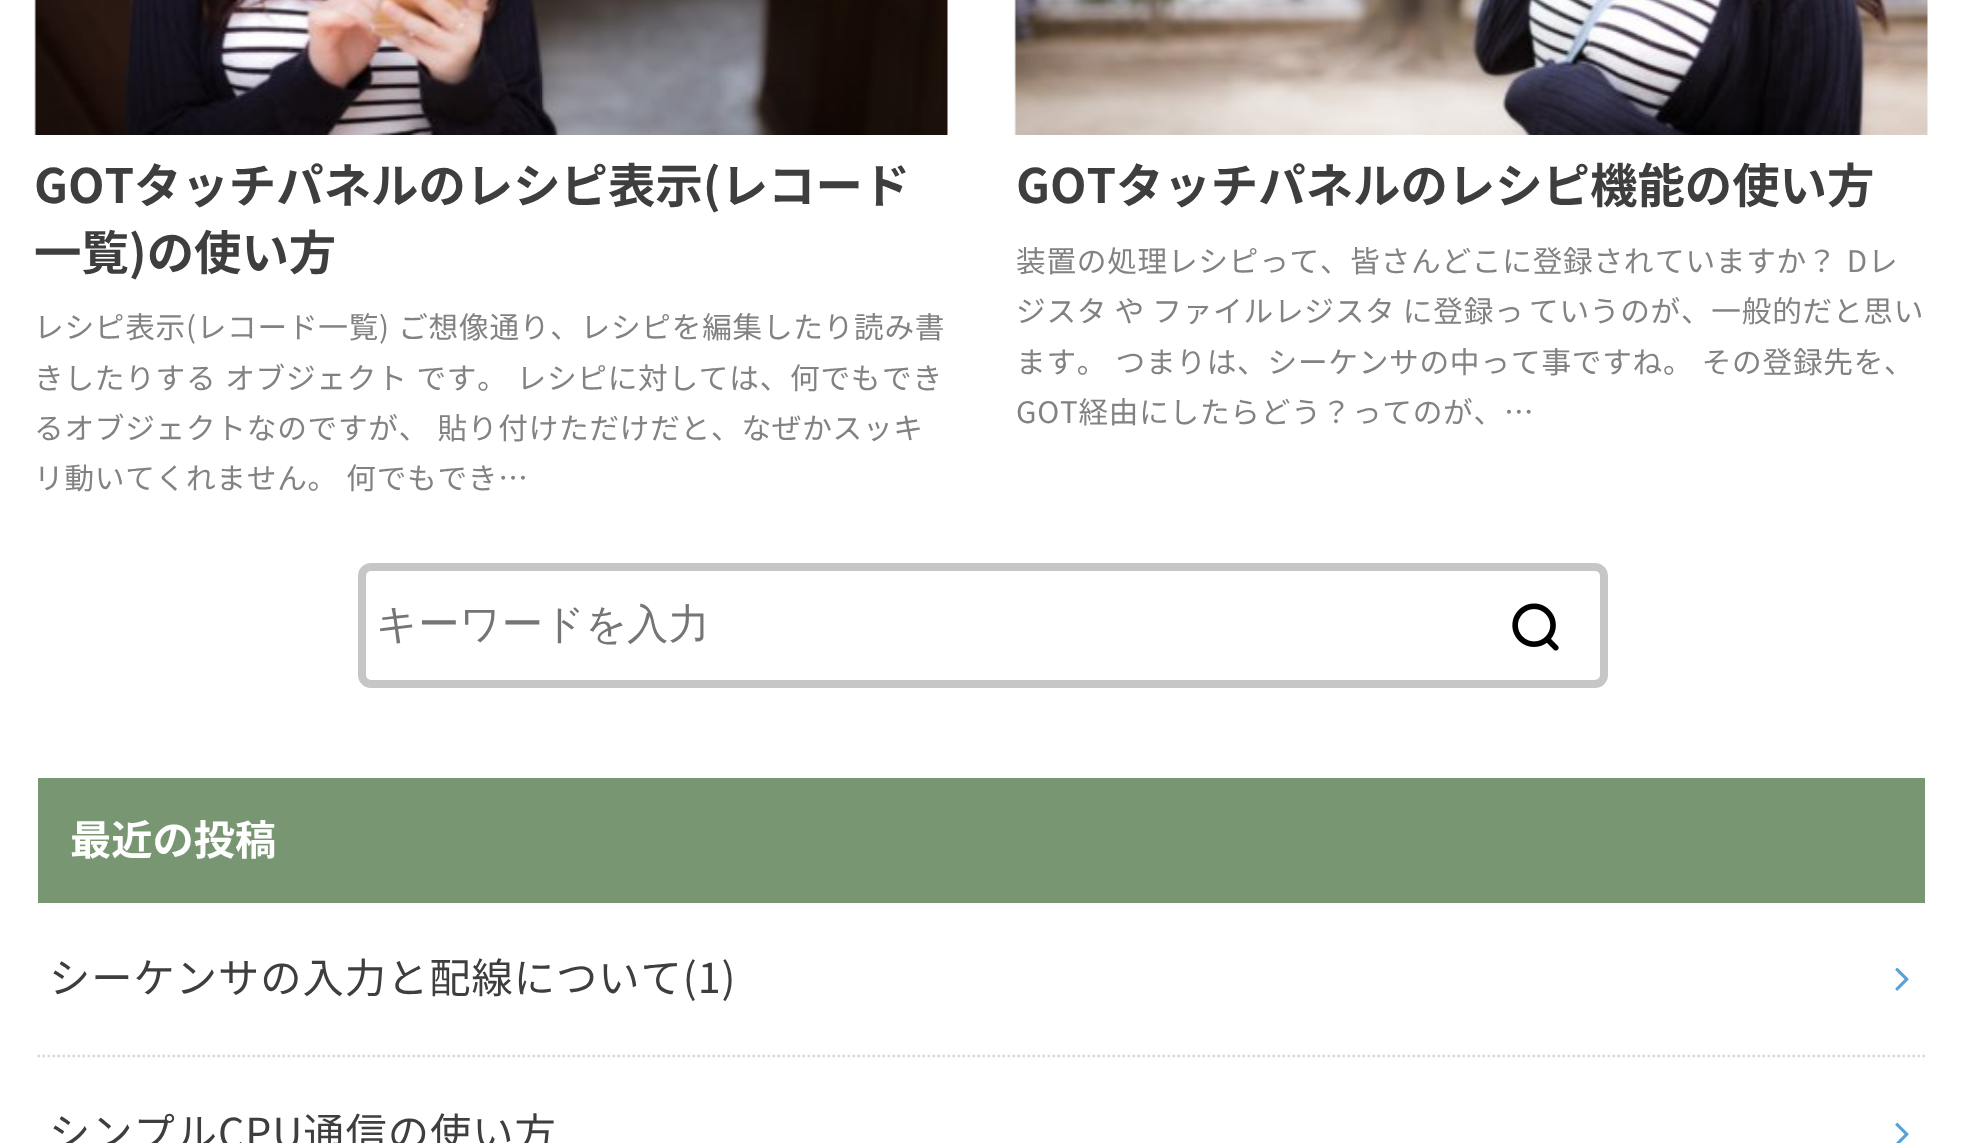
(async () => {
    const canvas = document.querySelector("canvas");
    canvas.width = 1961;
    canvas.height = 1143;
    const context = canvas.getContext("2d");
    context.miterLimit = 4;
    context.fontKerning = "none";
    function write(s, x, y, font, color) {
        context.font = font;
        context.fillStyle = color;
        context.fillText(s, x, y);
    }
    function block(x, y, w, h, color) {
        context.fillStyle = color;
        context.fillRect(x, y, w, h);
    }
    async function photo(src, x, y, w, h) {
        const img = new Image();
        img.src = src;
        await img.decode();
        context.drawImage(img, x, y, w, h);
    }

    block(0, 0, 1961, 1143, "rgb(255, 255, 255)");
    await photo("media/1.png", 34, 0, 914, 135);
    write("GOTタッチパネルのレシピ表示(レコード", 34, 203, "bold 47.4px Noto Sans JP", "rgb(62, 62, 62)");
    write("一覧)の使い方", 34, 270, "bold 47.4px Noto Sans JP", "rgb(62, 62, 62)");
    context.letterSpacing = "0.75px";
    context.wordSpacing = "1px";
    write("レシピ表示(レコード一覧) ご想像通り、レシピを編集したり読み書", 34, 338, "29.65px Noto Sans JP", "rgb(130, 130, 130)");
    context.wordSpacing = "1.5px";
    write("きしたりする オブジェクト です。 レシピに対しては、何でも", 34, 389, "29.65px Noto Sans JP", "rgb(130, 130, 130)");
    write("でき", 882, 389, "29.65px Noto Sans JP", "rgb(130, 130, 130)");
    context.wordSpacing = "1px";
    write("るオブジェクトなのですが、 貼り付けただけだと、なぜかスッキ", 34, 439, "29.65px Noto Sans JP", "rgb(130, 130, 130)");
    write("リ動いてくれません。 何でもでき…", 34, 489, "29.65px Noto Sans JP", "rgb(130, 130, 130)");
    await photo("media/2.png", 1014, 0, 914, 135);
    context.letterSpacing = "0px";
    context.wordSpacing = "0px";
    write("GOTタッチパネルのレシピ機能の使い方", 1016, 203, "bold 47.4px Noto Sans JP", "rgb(62, 62, 62)");
    context.letterSpacing = "0.75px";
    context.wordSpacing = "2px";
    write("装置の処理レシピって、皆さんどこに登録され", 1016, 272, "29.65px Noto Sans JP", "rgb(130, 130, 130)");
    write("ていますか？ Dレ", 1655, 272, "29.65px Noto Sans JP", "rgb(130, 130, 130)");
    context.wordSpacing = "0px";
    write("ジスタ や ファイルレジスタ に登録っ", 1016, 322, "29.65px Noto Sans JP", "rgb(130, 130, 130)");
    write("ていうのが、一般的だと思い", 1529, 322, "29.65px Noto Sans JP", "rgb(130, 130, 130)");
    context.wordSpacing = "1px";
    write("ます。 つまりは、シーケンサの中っ", 1016, 373, "29.65px Noto Sans JP", "rgb(130, 130, 130)");
    write("て事ですね。 その登録先を、", 1511, 373, "29.65px Noto Sans JP", "rgb(130, 130, 130)");
    context.wordSpacing = "0px";
    write("GOT経由にしたらどう？ってのが、…", 1016, 423, "29.65px Noto Sans JP", "rgb(130, 130, 130)");
    context.beginPath();
    context.roundRect(362, 567, 1242, 117, 9);
    context.strokeStyle = "rgb(198, 198, 198)";
    context.lineWidth = 8;
    context.stroke();
    context.letterSpacing = "0px";
    write("キーワードを入力", 376, 638, "500 41.25px WenQuanYi Zen Hei", "rgb(117, 117, 117)");
    await photo("media/3.png", 1512, 603, 47, 48);
    block(38, 778, 1887, 125, "rgb(121, 150, 114)");
    write("最近の投稿", 70, 855, "bold 41.25px Noto Sans JP", "rgb(255, 255, 255)");
    context.beginPath();
    context.moveTo(37.5, 1056);
    context.lineTo(1925, 1056);
    context.strokeStyle = "rgb(216, 216, 216)";
    context.lineWidth = 2.5;
    context.setLineDash([2.5, 2.5]);
    context.stroke();
    context.letterSpacing = "1px";
    write("シーケンサの入力と配線について(1)", 49, 993, "41.25px Noto Sans JP", "rgb(62, 62, 62)");
    await photo("media/4.png", 1895, 967, 14, 24);
    write("シンプルCPU通信の使い方", 49, 1148, "41.25px Noto Sans JP", "rgb(62, 62, 62)");
    await photo("media/5.png", 1895, 1122, 14, 21);
})();
